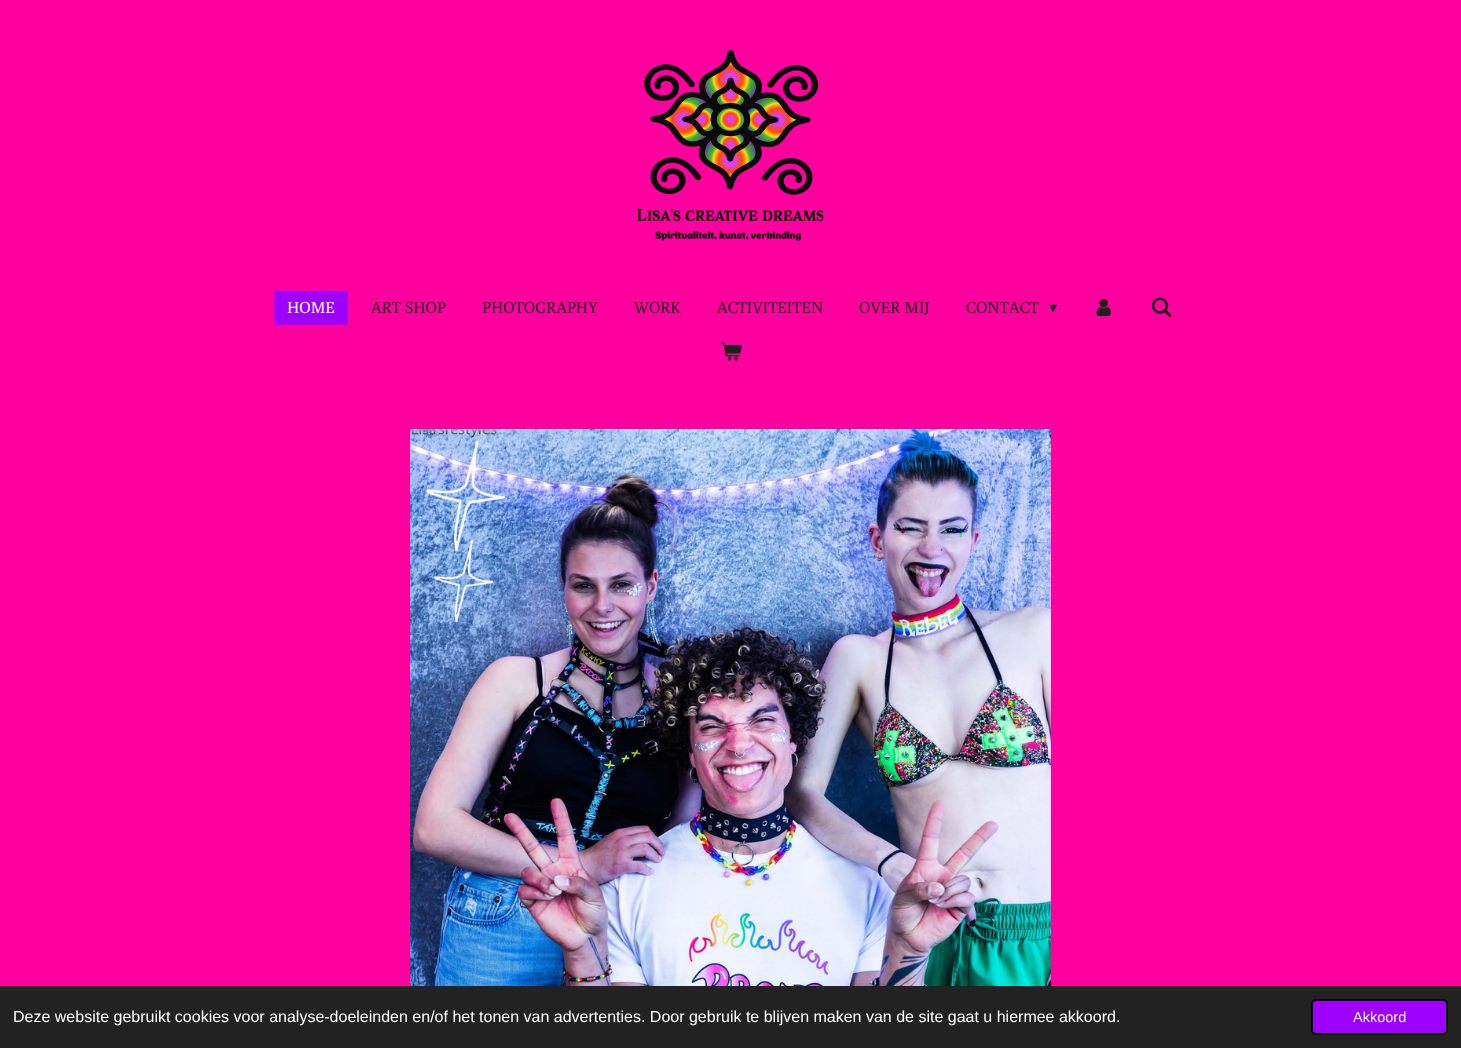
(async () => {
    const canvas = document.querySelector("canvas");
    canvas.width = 1461;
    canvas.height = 1048;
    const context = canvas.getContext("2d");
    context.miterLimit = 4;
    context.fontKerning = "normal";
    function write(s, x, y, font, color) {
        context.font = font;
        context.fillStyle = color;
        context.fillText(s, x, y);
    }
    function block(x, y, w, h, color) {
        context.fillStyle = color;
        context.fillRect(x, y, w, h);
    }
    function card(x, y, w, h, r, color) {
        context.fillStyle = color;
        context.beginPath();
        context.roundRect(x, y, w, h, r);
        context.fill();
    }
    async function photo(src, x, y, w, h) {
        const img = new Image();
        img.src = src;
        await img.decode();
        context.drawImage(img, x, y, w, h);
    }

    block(0, 0, 1461, 1048, "rgb(255, 0, 159)");
    await photo("media/1.png", 637, 50, 187, 191);
    card(274, 291, 74, 34, 3, "rgb(157, 0, 255)");
    write("HOME", 287, 313, "16px Poly", "rgb(255, 255, 255)");
    write("ART SHOP", 371, 313, "16px Poly", "rgb(32, 32, 32)");
    write("PHOTOGRAPHY", 482, 313, "16px Poly", "rgb(32, 32, 32)");
    write("WORK", 634, 313, "16px Poly", "rgb(32, 32, 32)");
    write("ACTIVITEITEN", 717, 313, "16px Poly", "rgb(32, 32, 32)");
    write("OVER MIJ", 859, 313, "16px Poly", "rgb(32, 32, 32)");
    write("CONTACT", 966, 313, "16px Poly", "rgb(32, 32, 32)");
    write("▾", 1049, 313, "16px DejaVu Sans", "rgb(32, 32, 32)");
    await photo("media/2.png", 1096, 298, 15, 19);
    await photo("media/3.png", 1151, 297, 21, 21);
    await photo("media/4.png", 721, 342, 21, 19);
    await photo("media/5.png", 410, 429, 641, 557);
    block(0, 986, 1461, 62, "rgb(34, 34, 34)");
    write("Deze website gebruikt cookies voor analyse-doeleinden en/of het tonen van advertenties. Door gebruik te blijven maken van de site gaat u hiermee akkoord.", 13, 1022, "16px Liberation Sans", "rgb(255, 255, 255)");
    context.fillStyle = "rgb(157, 0, 255)";
    context.beginPath();
    context.roundRect(1312, 1000, 135, 34, 4);
    context.fill();
    context.strokeStyle = "rgb(0, 0, 0)";
    context.lineWidth = 2;
    context.stroke();
    write("Akkoord", 1353, 1022, "14.5px Liberation Sans", "rgb(255, 255, 255)");
})();
